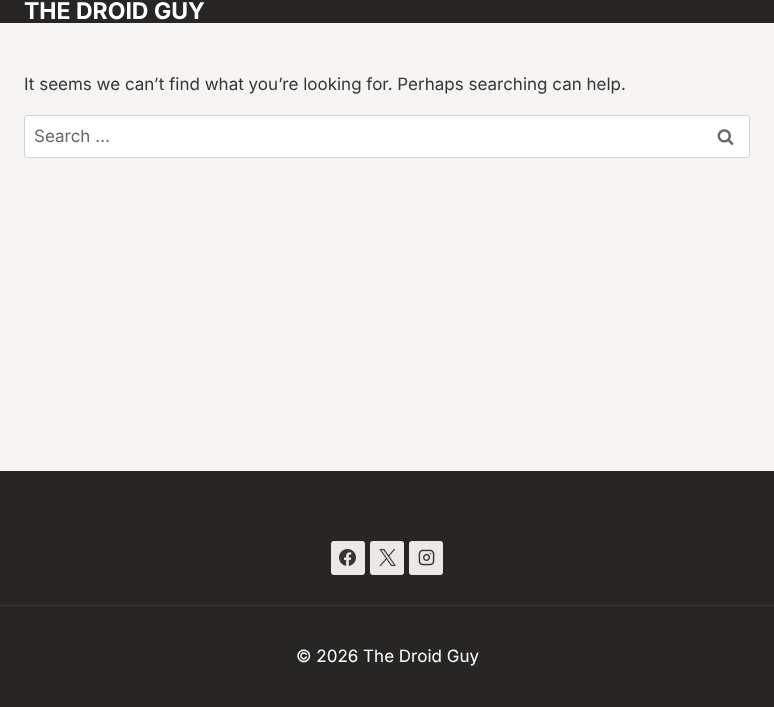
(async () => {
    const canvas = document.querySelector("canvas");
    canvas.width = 774;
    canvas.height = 707;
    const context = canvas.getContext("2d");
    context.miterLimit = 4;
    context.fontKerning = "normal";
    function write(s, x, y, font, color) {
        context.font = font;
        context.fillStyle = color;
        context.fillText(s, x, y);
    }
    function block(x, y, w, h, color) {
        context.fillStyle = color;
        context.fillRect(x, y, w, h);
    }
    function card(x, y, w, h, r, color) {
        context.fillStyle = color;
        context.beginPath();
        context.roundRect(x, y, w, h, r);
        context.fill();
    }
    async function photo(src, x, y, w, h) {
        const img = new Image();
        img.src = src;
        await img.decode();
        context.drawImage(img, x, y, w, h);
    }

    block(0, 0, 774, 707, "rgb(246, 245, 244)");
    block(0, 0, 774, 23, "rgb(39, 38, 36)");
    write("THE DROID GUY", 24, 19, "bold 23px Inter", "rgb(255, 255, 255)");
    write("It seems we can’t find what you’re looking for. Perhaps searching can help.", 24, 90, "17px Inter", "rgb(53, 53, 52)");
    context.fillStyle = "rgb(255, 255, 255)";
    context.beginPath();
    context.roundRect(24.5, 115.5, 725, 42, 2.5);
    context.fill();
    context.strokeStyle = "rgb(203, 213, 224)";
    context.stroke();
    write("Search …", 34, 142, "17px Inter", "rgb(105, 104, 102)");
    await photo("media/1.png", 717, 129, 17, 16);
    block(0, 471, 774, 236, "rgb(39, 38, 36)");
    card(331, 541, 34, 34, 3, "rgb(235, 232, 229)");
    await photo("media/2.png", 339, 549, 17, 17);
    card(370, 541, 34, 34, 3, "rgb(235, 232, 229)");
    await photo("media/3.png", 379, 549, 17, 17);
    card(409, 541, 34, 34, 3, "rgb(235, 232, 229)");
    await photo("media/4.png", 418, 549, 17, 17);
    block(0, 605, 774, 1, "rgb(53, 53, 52)");
    write("© 2026 The Droid Guy", 296, 662, "17px Inter", "rgb(255, 255, 255)");
})();
